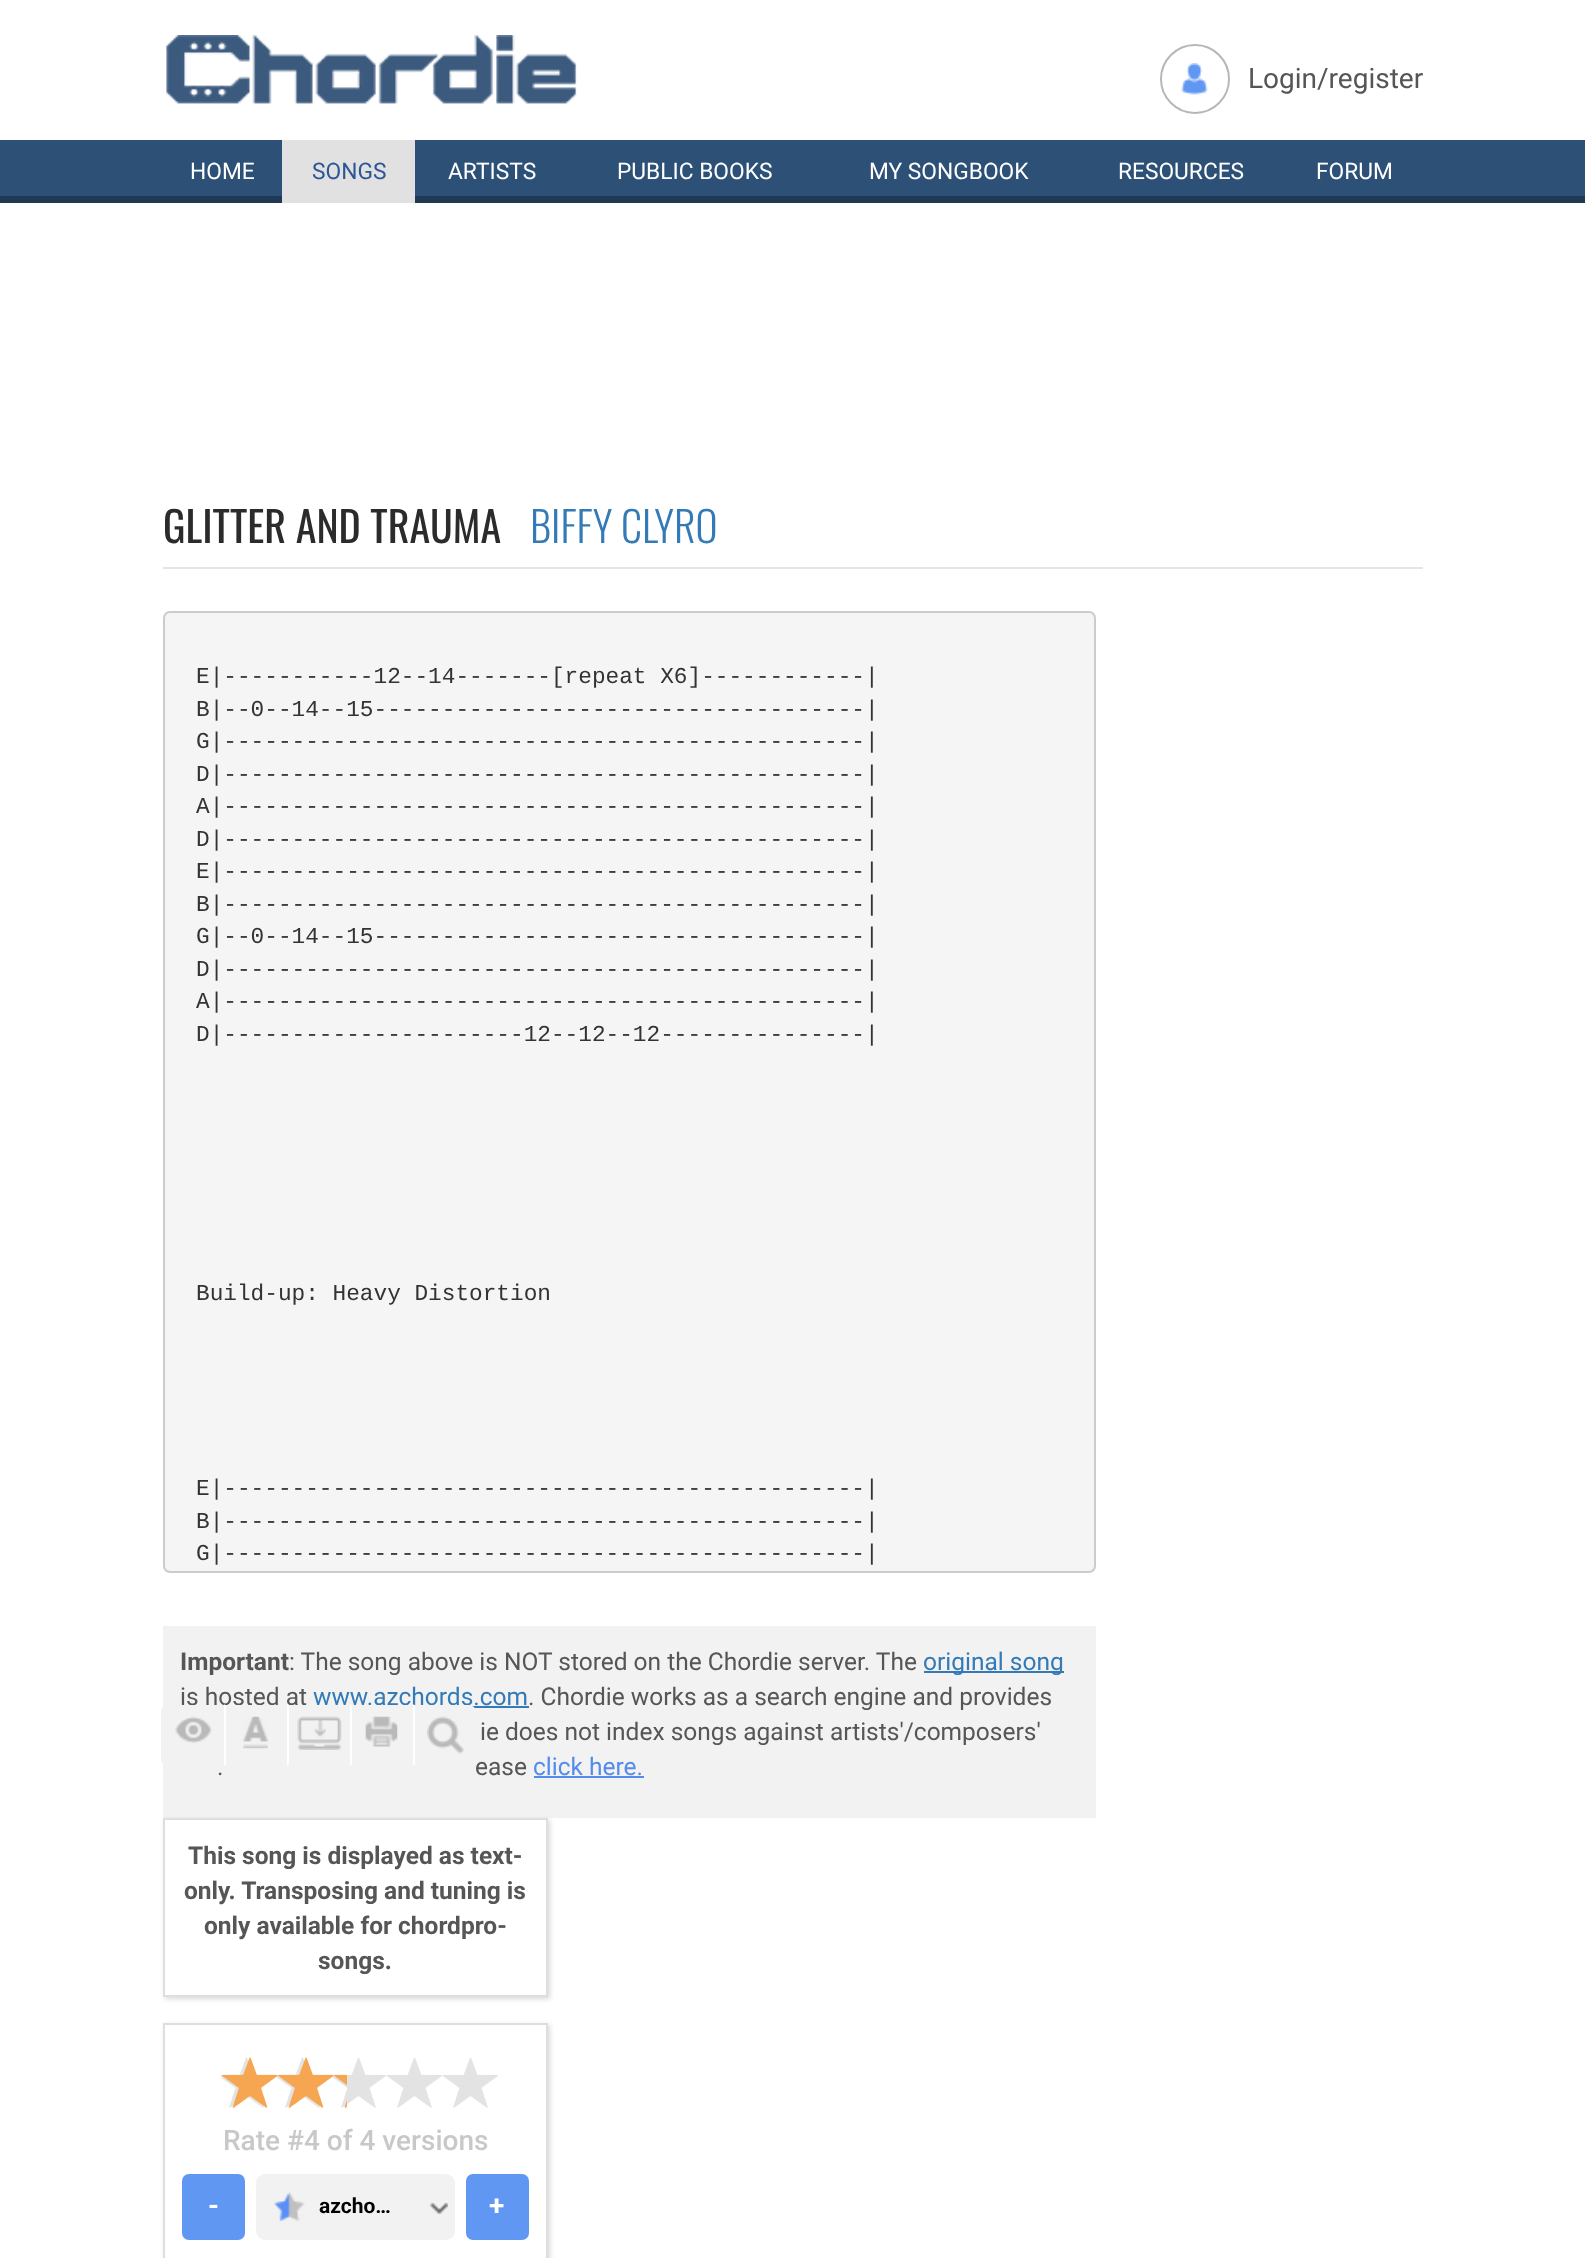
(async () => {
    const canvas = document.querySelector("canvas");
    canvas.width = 1585;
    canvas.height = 2258;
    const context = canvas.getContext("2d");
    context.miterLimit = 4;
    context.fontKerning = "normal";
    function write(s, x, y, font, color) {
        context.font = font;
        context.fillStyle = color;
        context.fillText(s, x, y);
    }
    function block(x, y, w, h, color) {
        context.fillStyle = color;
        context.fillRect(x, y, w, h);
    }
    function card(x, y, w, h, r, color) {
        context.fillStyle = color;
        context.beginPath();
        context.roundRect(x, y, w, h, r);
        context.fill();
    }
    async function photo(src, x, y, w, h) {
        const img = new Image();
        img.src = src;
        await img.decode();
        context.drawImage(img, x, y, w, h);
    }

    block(0, 0, 1585, 2258, "rgb(255, 255, 255)");
    await photo("media/1.png", 166, 35, 411, 69);
    await photo("media/2.png", 1181, 63, 27, 32);
    context.beginPath();
    context.arc(1195, 79, 34, 0, Math.PI * 2);
    context.strokeStyle = "rgb(183, 183, 183)";
    context.lineWidth = 2;
    context.stroke();
    write("Login/register", 1248, 88, "28px Roboto", "rgb(86, 86, 86)");
    block(0, 140, 1585, 56, "rgb(45, 80, 119)");
    block(0, 196, 1585, 7, "rgb(31, 56, 83)");
    write("HOME", 190, 179, "22.75px Roboto", "rgb(255, 255, 255)");
    block(282, 140, 133, 63, "rgb(225, 225, 225)");
    write("SONGS", 312, 179, "22.75px Roboto", "rgb(47, 85, 149)");
    write("ARTISTS", 448, 179, "22.75px Roboto", "rgb(255, 255, 255)");
    write("PUBLIC BOOKS", 617, 179, "22.75px Roboto", "rgb(255, 255, 255)");
    write("MY SONGBOOK", 869, 179, "22.75px Roboto", "rgb(255, 255, 255)");
    write("RESOURCES", 1118, 179, "22.75px Roboto", "rgb(255, 255, 255)");
    write("FORUM", 1316, 179, "22.75px Roboto", "rgb(255, 255, 255)");
    block(163, 567, 1260, 2, "rgb(229, 229, 229)");
    write("GLITTER AND TRAUMA", 163, 543, "42px Oswald", "rgb(43, 43, 43)");
    write("BIFFY CLYRO", 530, 543, "300 42px Oswald", "rgb(51, 122, 183)");
    context.fillStyle = "rgb(245, 245, 245)";
    context.beginPath();
    context.roundRect(164, 612, 931, 960, 6);
    context.fill();
    context.strokeStyle = "rgb(204, 204, 204)";
    context.stroke();
    write("E|-----------12--14-------[repeat X6]------------|", 196, 683, "22.75px Liberation Mono", "rgb(51, 51, 51)");
    write("B|--0--14--15------------------------------------|", 196, 716, "22.75px Liberation Mono", "rgb(51, 51, 51)");
    write("G|-----------------------------------------------|", 196, 748, "22.75px Liberation Mono", "rgb(51, 51, 51)");
    write("D|-----------------------------------------------|", 196, 781, "22.75px Liberation Mono", "rgb(51, 51, 51)");
    write("A|-----------------------------------------------|", 196, 813, "22.75px Liberation Mono", "rgb(51, 51, 51)");
    write("D|-----------------------------------------------|", 196, 846, "22.75px Liberation Mono", "rgb(51, 51, 51)");
    write("E|-----------------------------------------------|", 196, 878, "22.75px Liberation Mono", "rgb(51, 51, 51)");
    write("B|-----------------------------------------------|", 196, 911, "22.75px Liberation Mono", "rgb(51, 51, 51)");
    write("G|--0--14--15------------------------------------|", 196, 943, "22.75px Liberation Mono", "rgb(51, 51, 51)");
    write("D|-----------------------------------------------|", 196, 976, "22.75px Liberation Mono", "rgb(51, 51, 51)");
    write("A|-----------------------------------------------|", 196, 1008, "22.75px Liberation Mono", "rgb(51, 51, 51)");
    write("D|----------------------12--12--12---------------|", 196, 1041, "22.75px Liberation Mono", "rgb(51, 51, 51)");
    write("Build-up: Heavy Distortion", 196, 1300, "22.75px Liberation Mono", "rgb(51, 51, 51)");
    write("E|-----------------------------------------------|", 196, 1495, "22.75px Liberation Mono", "rgb(51, 51, 51)");
    write("B|-----------------------------------------------|", 196, 1528, "22.75px Liberation Mono", "rgb(51, 51, 51)");
    write("G|-----------------------------------------------|", 196, 1560, "22.75px Liberation Mono", "rgb(51, 51, 51)");
    block(163, 1626, 933, 192, "rgb(242, 242, 242)");
    write("Important", 180, 1670, "bold 24.5px Roboto", "rgb(86, 86, 86)");
    write(": The song above is NOT stored on the Chordie server. The", 289, 1670, "24.5px Roboto", "rgb(86, 86, 86)");
    block(924, 1671, 140, 2, "rgb(51, 122, 183)");
    write("original song", 923, 1670, "24.5px Roboto", "rgb(51, 122, 183)");
    write("is hosted at", 180, 1705, "24.5px Roboto", "rgb(86, 86, 86)");
    write("www.azchords.com", 313, 1705, "24.5px Roboto", "rgb(51, 122, 183)");
    block(472, 1706, 57, 2, "rgb(51, 122, 183)");
    write(". Chordie works as a search engine and provides", 528, 1705, "24.5px Roboto", "rgb(86, 86, 86)");
    write("ie does not index songs against artists'/composers'", 480, 1740, "24.5px Roboto", "rgb(86, 86, 86)");
    write(".", 217, 1775, "24.5px Roboto", "rgb(86, 86, 86)");
    write("ease", 475, 1775, "24.5px Roboto", "rgb(86, 86, 86)");
    write("click here.", 533, 1775, "24.5px Roboto", "rgb(84, 140, 235)");
    block(534, 1776, 110, 2, "rgb(84, 140, 235)");
    context.fillStyle = "rgb(242, 242, 242)";
    context.beginPath();
    context.roundRect(161, 1705, 63, 61, [7, 0, 0, 7]);
    context.fill();
    await photo("media/3.png", 175, 1716, 37, 27);
    block(224, 1705, 50, 1, "rgb(242, 242, 242)");
    await photo("media/4.png", 243, 1716, 25, 33);
    context.fillStyle = "rgb(255, 255, 255)";
    context.beginPath();
    context.moveTo(224, 1766);
    context.lineTo(224, 1704);
    context.lineTo(226, 1706);
    context.lineTo(226, 1764);
    context.closePath();
    context.fill();
    block(290, 1705, 17, 1, "rgb(242, 242, 242)");
    await photo("media/5.png", 297, 1716, 45, 34);
    context.fillStyle = "rgb(255, 255, 255)";
    context.beginPath();
    context.moveTo(287, 1766);
    context.lineTo(287, 1704);
    context.lineTo(289, 1706);
    context.lineTo(289, 1764);
    context.closePath();
    context.fill();
    block(369, 1705, 39, 1, "rgb(242, 242, 242)");
    await photo("media/6.png", 365, 1716, 33, 31);
    context.fillStyle = "rgb(255, 255, 255)";
    context.beginPath();
    context.moveTo(350, 1766);
    context.lineTo(350, 1704);
    context.lineTo(352, 1706);
    context.lineTo(352, 1764);
    context.closePath();
    context.fill();
    context.fillStyle = "rgb(242, 242, 242)";
    context.beginPath();
    context.roundRect(413, 1705, 63, 61, [0, 7, 7, 0]);
    context.fill();
    await photo("media/7.png", 427, 1716, 37, 38);
    context.fillStyle = "rgb(255, 255, 255)";
    context.beginPath();
    context.moveTo(413, 1766);
    context.lineTo(415, 1764);
    context.lineTo(415, 1706);
    context.lineTo(413, 1704);
    context.closePath();
    context.fill();
    context.save();
    context.beginPath();
    context.moveTo(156, 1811);
    context.lineTo(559, 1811);
    context.lineTo(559, 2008);
    context.lineTo(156, 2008);
    context.closePath();
    context.moveTo(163, 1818);
    context.lineTo(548, 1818);
    context.lineTo(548, 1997);
    context.lineTo(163, 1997);
    context.closePath();
    context.clip("evenodd");
    context.fillStyle = "rgba(0, 0, 0, 0.15)";
    context.filter = "blur(2.5px)";
    context.beginPath();
    context.rect(165, 1820, 385, 179);
    context.fill();
    context.filter = "none";
    context.restore();
    context.strokeStyle = "rgb(222, 222, 222)";
    context.strokeRect(164, 1819, 383, 177);
    write("This song is displayed as text-", 188, 1864, "bold 24.5px Roboto", "rgb(86, 86, 86)");
    write("only. Transposing and tuning is", 184, 1899, "bold 24.5px Roboto", "rgb(86, 86, 86)");
    write("only available for chordpro-", 204, 1934, "bold 24.5px Roboto", "rgb(86, 86, 86)");
    write("songs.", 318, 1969, "bold 24.5px Roboto", "rgb(86, 86, 86)");
    context.save();
    context.beginPath();
    context.moveTo(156, 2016);
    context.lineTo(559, 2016);
    context.lineTo(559, 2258);
    context.lineTo(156, 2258);
    context.closePath();
    context.moveTo(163, 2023);
    context.lineTo(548, 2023);
    context.lineTo(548, 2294);
    context.lineTo(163, 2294);
    context.closePath();
    context.clip("evenodd");
    context.fillStyle = "rgba(0, 0, 0, 0.15)";
    context.filter = "blur(2.5px)";
    context.beginPath();
    context.rect(165, 2025, 385, 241);
    context.fill();
    context.filter = "none";
    context.restore();
    context.strokeRect(164, 2024, 383, 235);
    await photo("media/8.png", 221, 2057, 277, 51);
    await photo("media/9.png", 222, 2057, 125, 51);
    write("Rate #4 of 4 versions", 223, 2150, "500 28px Roboto", "rgb(200, 200, 200)");
    card(182, 2174, 63, 66, 7, "rgb(96, 151, 243)");
    write("-", 208, 2215, "bold 28px Roboto", "rgb(255, 255, 255)");
    card(256, 2174, 199, 66, 9, "rgb(242, 242, 242)");
    await photo("media/10.png", 274, 2192, 31, 29);
    write("azcho…", 319, 2213, "bold 21px Roboto", "rgb(0, 0, 0)");
    await photo("media/11.png", 430, 2203, 18, 11);
    card(466, 2174, 63, 66, 7, "rgb(96, 151, 243)");
    write("+", 489, 2215, "bold 28px Roboto", "rgb(255, 255, 255)");
})();
